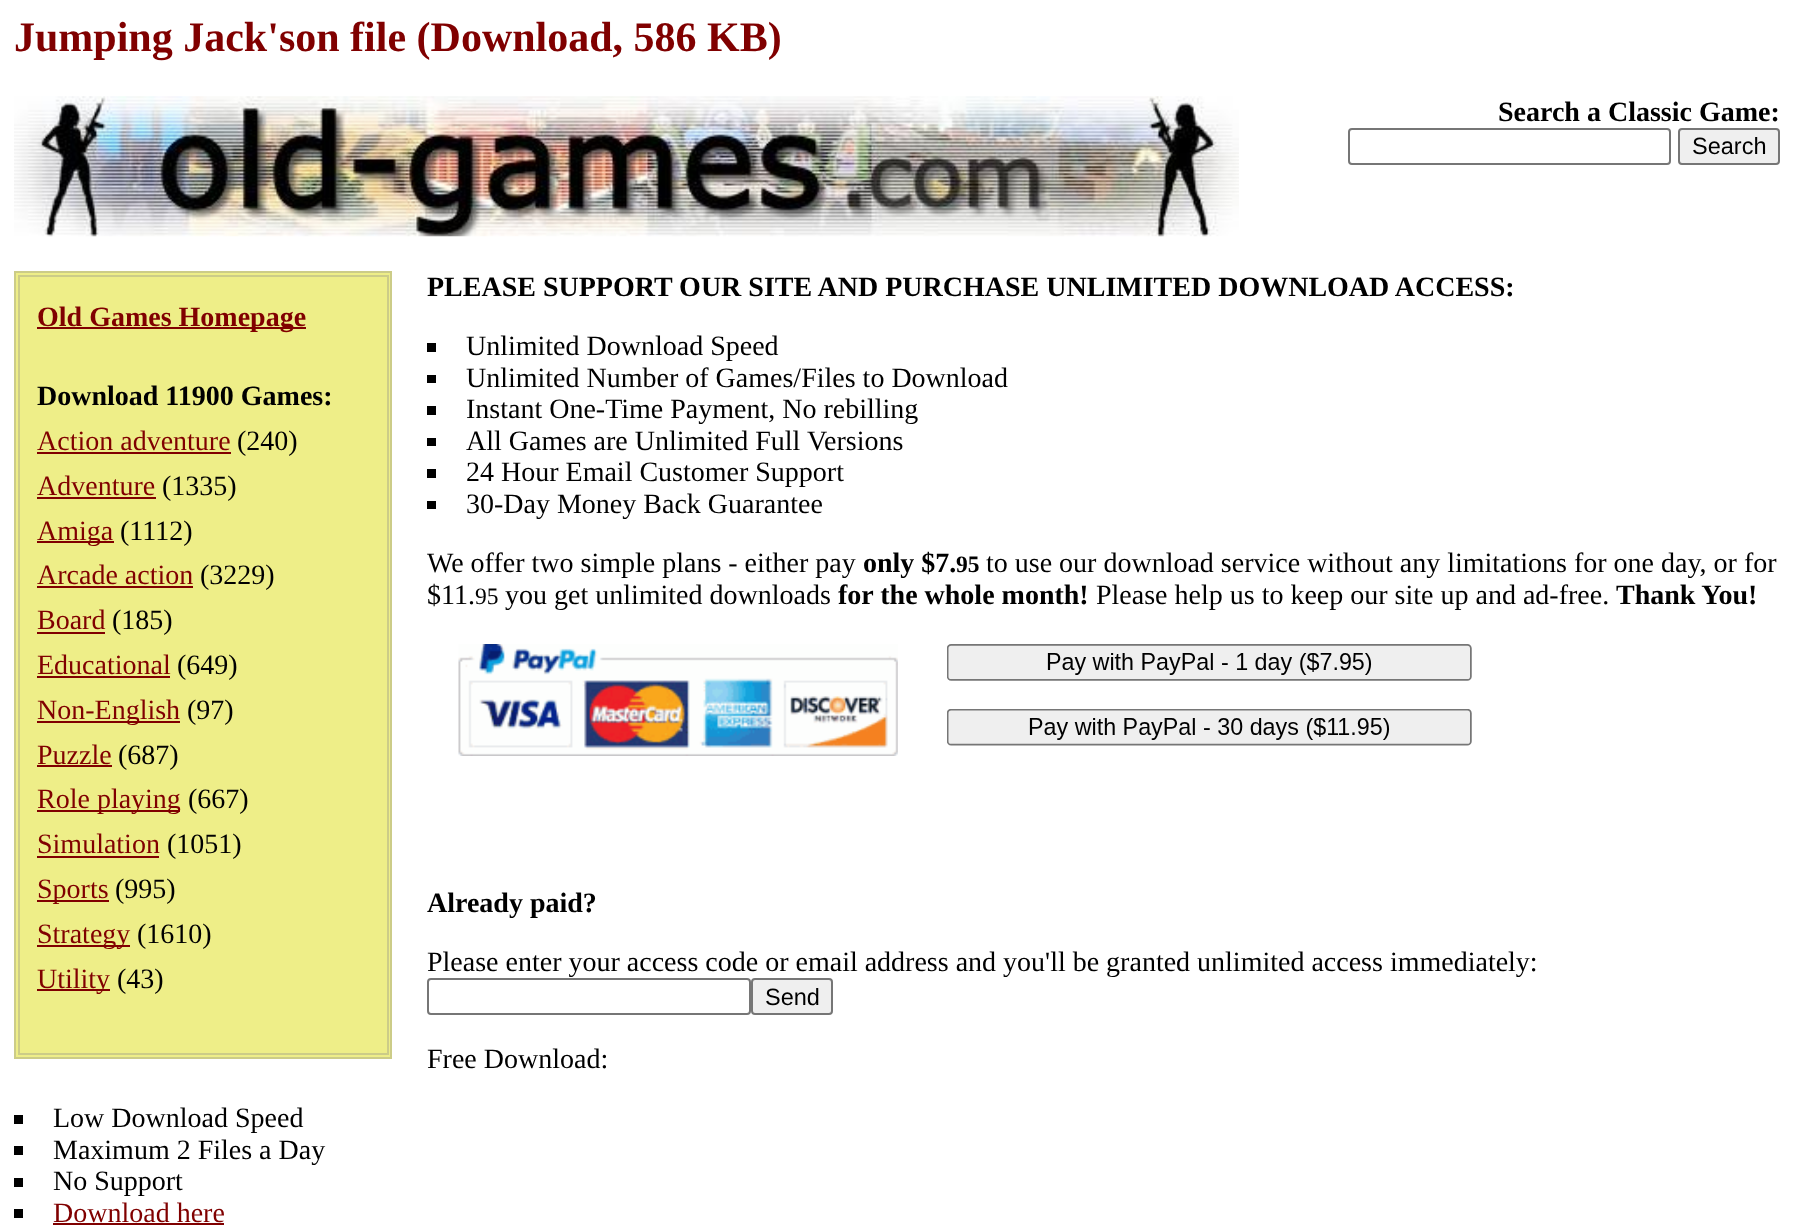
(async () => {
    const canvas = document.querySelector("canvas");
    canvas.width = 1793;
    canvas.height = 1226;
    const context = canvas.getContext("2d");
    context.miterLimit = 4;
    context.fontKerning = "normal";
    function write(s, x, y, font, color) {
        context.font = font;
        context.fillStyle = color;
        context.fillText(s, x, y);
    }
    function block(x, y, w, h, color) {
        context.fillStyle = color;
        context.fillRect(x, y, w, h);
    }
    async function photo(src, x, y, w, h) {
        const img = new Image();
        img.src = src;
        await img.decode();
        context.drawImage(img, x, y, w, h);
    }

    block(0, 0, 1793, 1226, "rgb(255, 255, 255)");
    write("Jumping Jack'son file (Download, 586 KB)", 14, 51, "bold 42px Liberation Serif", "rgb(128, 0, 0)");
    await photo("media/1.png", 14, 96, 1225, 141);
    write("Search a Classic Game:", 1498, 121, "bold 28px Liberation Serif", "rgb(0, 0, 0)");
    context.beginPath();
    context.roundRect(1349, 129, 321, 35, 3);
    context.strokeStyle = "rgb(118, 118, 118)";
    context.lineWidth = 2;
    context.stroke();
    context.fillStyle = "rgb(239, 239, 239)";
    context.beginPath();
    context.roundRect(1679, 129, 100, 35, 3);
    context.fill();
    context.stroke();
    write("Search", 1692, 154, "23.5px Liberation Sans", "rgb(0, 0, 0)");
    write("PLEASE SUPPORT OUR SITE AND PURCHASE UNLIMITED DOWNLOAD ACCESS:", 427, 296, "bold 28px Liberation Serif", "rgb(0, 0, 0)");
    block(427, 343, 9, 9, "rgb(0, 0, 0)");
    write("Unlimited Download Speed", 466, 355, "28px Liberation Serif", "rgb(0, 0, 0)");
    block(427, 375, 9, 8, "rgb(0, 0, 0)");
    write("Unlimited Number of Games/Files to Download", 466, 387, "28px Liberation Serif", "rgb(0, 0, 0)");
    block(427, 406, 9, 9, "rgb(0, 0, 0)");
    write("Instant One-Time Payment, No rebilling", 466, 418, "28px Liberation Serif", "rgb(0, 0, 0)");
    block(427, 438, 9, 8, "rgb(0, 0, 0)");
    write("All Games are Unlimited Full Versions", 466, 450, "28px Liberation Serif", "rgb(0, 0, 0)");
    block(427, 469, 9, 9, "rgb(0, 0, 0)");
    write("24 Hour Email Customer Support", 466, 481, "28px Liberation Serif", "rgb(0, 0, 0)");
    block(427, 501, 9, 8, "rgb(0, 0, 0)");
    write("30-Day Money Back Guarantee", 466, 513, "28px Liberation Serif", "rgb(0, 0, 0)");
    write("We offer two simple plans - either pay", 427, 572, "28px Liberation Serif", "rgb(0, 0, 0)");
    write("only $7.", 863, 572, "bold 28px Liberation Serif", "rgb(0, 0, 0)");
    write("95", 956, 572, "bold 23.5px Liberation Serif", "rgb(0, 0, 0)");
    write("to use our download service without any limitations for one day, or for", 986, 572, "28px Liberation Serif", "rgb(0, 0, 0)");
    write("$11.", 427, 604, "28px Liberation Serif", "rgb(0, 0, 0)");
    write("95", 475, 604, "23.5px Liberation Serif", "rgb(0, 0, 0)");
    write("you get unlimited downloads", 505, 604, "28px Liberation Serif", "rgb(0, 0, 0)");
    write("for the whole month!", 838, 604, "bold 28px Liberation Serif", "rgb(0, 0, 0)");
    write("Please help us to keep our site up and ad-free.", 1096, 604, "28px Liberation Serif", "rgb(0, 0, 0)");
    write("Thank You!", 1616, 604, "bold 28px Liberation Serif", "rgb(0, 0, 0)");
    await photo("media/2.png", 458, 644, 1014, 112);
    write("Already paid?", 427, 912, "bold 28px Liberation Serif", "rgb(0, 0, 0)");
    write("Please enter your access code or email address and you'll be granted unlimited access immediately:", 427, 971, "28px Liberation Serif", "rgb(0, 0, 0)");
    context.beginPath();
    context.roundRect(428, 979, 322, 35, 3);
    context.stroke();
    context.fillStyle = "rgb(239, 239, 239)";
    context.beginPath();
    context.roundRect(752, 979, 80, 35, 3);
    context.fill();
    context.stroke();
    write("Send", 765, 1005, "23.5px Liberation Sans", "rgb(0, 0, 0)");
    write("Free Download:", 427, 1068, "28px Liberation Serif", "rgb(0, 0, 0)");
    block(14, 1115, 9, 9, "rgb(0, 0, 0)");
    write("Low Download Speed", 53, 1127, "28px Liberation Serif", "rgb(0, 0, 0)");
    block(14, 1146, 9, 9, "rgb(0, 0, 0)");
    write("Maximum 2 Files a Day", 53, 1159, "28px Liberation Serif", "rgb(0, 0, 0)");
    block(14, 1178, 9, 9, "rgb(0, 0, 0)");
    write("No Support", 53, 1190, "28px Liberation Serif", "rgb(0, 0, 0)");
    block(14, 1209, 9, 9, "rgb(0, 0, 0)");
    write("Download here", 53, 1222, "28px Liberation Serif", "rgb(128, 0, 0)");
    block(53, 1223, 171, 2, "rgb(128, 0, 0)");
    context.fillStyle = "rgb(238, 238, 136)";
    context.beginPath();
    context.rect(15, 272, 376, 786);
    context.fill();
    context.strokeStyle = "rgb(204, 204, 136)";
    context.stroke();
    context.strokeRect(19, 276, 369, 778);
    block(37, 327, 269, 2, "rgb(128, 0, 0)");
    write("Old Games Homepage", 37, 326, "bold 28px Liberation Serif", "rgb(128, 0, 0)");
    write("Download 11900 Games:", 37, 405, "bold 28px Liberation Serif", "rgb(0, 0, 0)");
    write("Action adventure", 37, 450, "28px Liberation Serif", "rgb(128, 0, 0)");
    block(37, 452, 194, 2, "rgb(128, 0, 0)");
    write("(240)", 237, 450, "28px Liberation Serif", "rgb(0, 0, 0)");
    write("Adventure", 37, 495, "28px Liberation Serif", "rgb(128, 0, 0)");
    block(37, 497, 119, 2, "rgb(128, 0, 0)");
    write("(1335)", 162, 495, "28px Liberation Serif", "rgb(0, 0, 0)");
    block(37, 541, 77, 2, "rgb(128, 0, 0)");
    write("Amiga", 37, 540, "28px Liberation Serif", "rgb(128, 0, 0)");
    write("(1112)", 120, 540, "28px Liberation Serif", "rgb(0, 0, 0)");
    write("Arcade action", 37, 584, "28px Liberation Serif", "rgb(128, 0, 0)");
    block(37, 586, 156, 2, "rgb(128, 0, 0)");
    write("(3229)", 200, 584, "28px Liberation Serif", "rgb(0, 0, 0)");
    write("Board", 37, 629, "28px Liberation Serif", "rgb(128, 0, 0)");
    block(37, 632, 68, 2, "rgb(128, 0, 0)");
    write("(185)", 112, 629, "28px Liberation Serif", "rgb(0, 0, 0)");
    write("Educational", 37, 674, "28px Liberation Serif", "rgb(128, 0, 0)");
    block(37, 676, 133, 2, "rgb(128, 0, 0)");
    write("(649)", 177, 674, "28px Liberation Serif", "rgb(0, 0, 0)");
    block(37, 721, 143, 2, "rgb(128, 0, 0)");
    write("Non-English", 37, 719, "28px Liberation Serif", "rgb(128, 0, 0)");
    write("(97)", 187, 719, "28px Liberation Serif", "rgb(0, 0, 0)");
    write("Puzzle", 37, 764, "28px Liberation Serif", "rgb(128, 0, 0)");
    block(37, 765, 75, 2, "rgb(128, 0, 0)");
    write("(687)", 118, 764, "28px Liberation Serif", "rgb(0, 0, 0)");
    block(37, 810, 143, 2, "rgb(128, 0, 0)");
    write("Role playing", 37, 808, "28px Liberation Serif", "rgb(128, 0, 0)");
    write("(667)", 188, 808, "28px Liberation Serif", "rgb(0, 0, 0)");
    write("Simulation", 37, 853, "28px Liberation Serif", "rgb(128, 0, 0)");
    block(37, 856, 122, 2, "rgb(128, 0, 0)");
    write("(1051)", 167, 853, "28px Liberation Serif", "rgb(0, 0, 0)");
    block(37, 900, 72, 2, "rgb(128, 0, 0)");
    write("Sports", 37, 898, "28px Liberation Serif", "rgb(128, 0, 0)");
    write("(995)", 115, 898, "28px Liberation Serif", "rgb(0, 0, 0)");
    block(37, 945, 93, 2, "rgb(128, 0, 0)");
    write("Strategy", 37, 943, "28px Liberation Serif", "rgb(128, 0, 0)");
    write("(1610)", 137, 943, "28px Liberation Serif", "rgb(0, 0, 0)");
    block(37, 989, 73, 2, "rgb(128, 0, 0)");
    write("Utility", 37, 988, "28px Liberation Serif", "rgb(128, 0, 0)");
    write("(43)", 117, 988, "28px Liberation Serif", "rgb(0, 0, 0)");
})();
